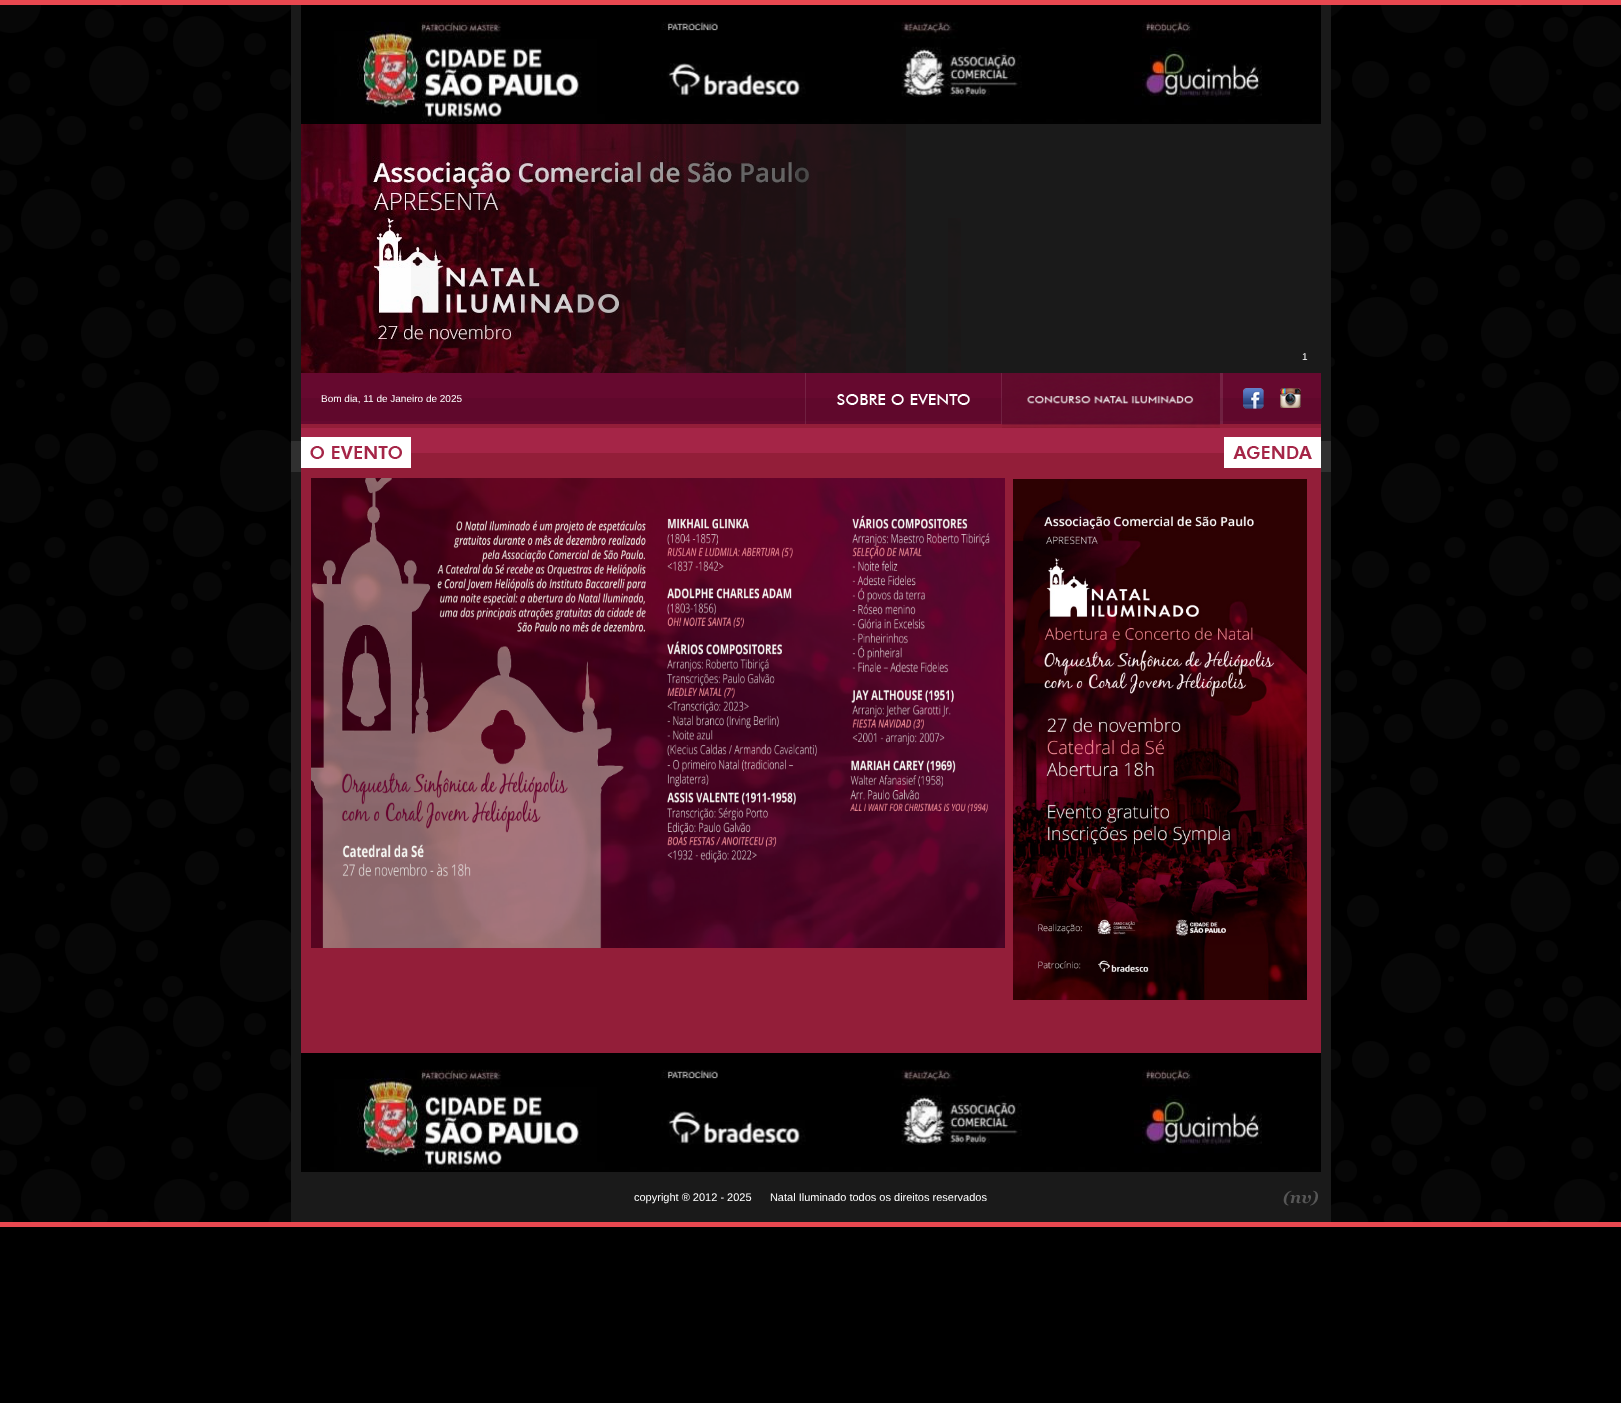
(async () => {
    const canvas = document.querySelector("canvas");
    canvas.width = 1621;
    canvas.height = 1403;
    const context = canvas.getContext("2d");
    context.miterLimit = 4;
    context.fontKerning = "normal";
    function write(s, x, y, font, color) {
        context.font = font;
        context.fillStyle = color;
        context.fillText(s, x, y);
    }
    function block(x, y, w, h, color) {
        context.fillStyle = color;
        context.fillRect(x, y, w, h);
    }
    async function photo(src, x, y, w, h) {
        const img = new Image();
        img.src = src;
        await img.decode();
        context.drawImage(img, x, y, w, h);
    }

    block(0, 0, 1621, 1403, "rgb(0, 0, 0)");
    block(0, 0, 1621, 5, "rgb(232, 72, 80)");
    await photo("media/1.png", 0, 5, 1621, 1217);
    block(291, 5, 1040, 1217, "rgb(26, 26, 26)");
    await photo("media/2.png", 301, 5, 1020, 119);
    await photo("media/3.png", 301, 124, 55, 249);
    await photo("media/4.png", 356, 124, 55, 249);
    await photo("media/5.png", 411, 124, 55, 249);
    await photo("media/6.png", 466, 124, 55, 249);
    await photo("media/7.png", 521, 124, 55, 249);
    await photo("media/8.png", 576, 124, 55, 249);
    await photo("media/9.png", 631, 124, 55, 249);
    await photo("media/10.png", 686, 124, 55, 249);
    await photo("media/11.png", 741, 124, 55, 249);
    await photo("media/12.png", 796, 124, 55, 249);
    await photo("media/13.png", 851, 124, 55, 249);
    await photo("media/14.png", 948, 218, 13, 155);
    write("1", 1302, 360, "10px Liberation Sans", "rgb(255, 255, 255)");
    block(301, 373, 1020, 25, "rgb(102, 9, 47)");
    block(301, 398, 1020, 23, "rgb(96, 8, 44)");
    block(301, 421, 1020, 3, "rgb(102, 9, 47)");
    block(301, 424, 1020, 4, "rgb(147, 30, 57)");
    block(301, 428, 1020, 25, "rgb(165, 37, 71)");
    block(301, 453, 1020, 600, "rgb(147, 30, 57)");
    await photo("media/15.png", 311, 478, 694, 470);
    await photo("media/16.png", 1013, 479, 294, 521);
    write("Bom dia, 11 de Janeiro de 2025", 321, 402, "10px Liberation Sans", "rgb(255, 255, 255)");
    await photo("media/17.png", 805, 373, 1, 51);
    await photo("media/18.png", 837, 394, 133, 11);
    await photo("media/17.png", 1001, 373, 1, 51);
    await photo("media/19.png", 1002, 373, 218, 55);
    await photo("media/17.png", 1220, 373, 1, 51);
    await photo("media/17.png", 1221, 373, 1, 51);
    await photo("media/17.png", 1222, 373, 1, 51);
    await photo("media/20.png", 1243, 388, 21, 21);
    await photo("media/21.png", 1280, 388, 21, 20);
    await photo("media/22.png", 291, 437, 120, 35);
    await photo("media/23.png", 1224, 437, 107, 35);
    await photo("media/2.png", 301, 1053, 1020, 119);
    write("copyright ® 2012 - 2025      Natal Iluminado todos os direitos reservados", 634, 1201, "11px Liberation Sans", "rgb(255, 255, 255)");
    await photo("media/24.png", 1283, 1190, 35, 16);
    block(0, 1222, 1621, 5, "rgb(232, 72, 80)");
})();
